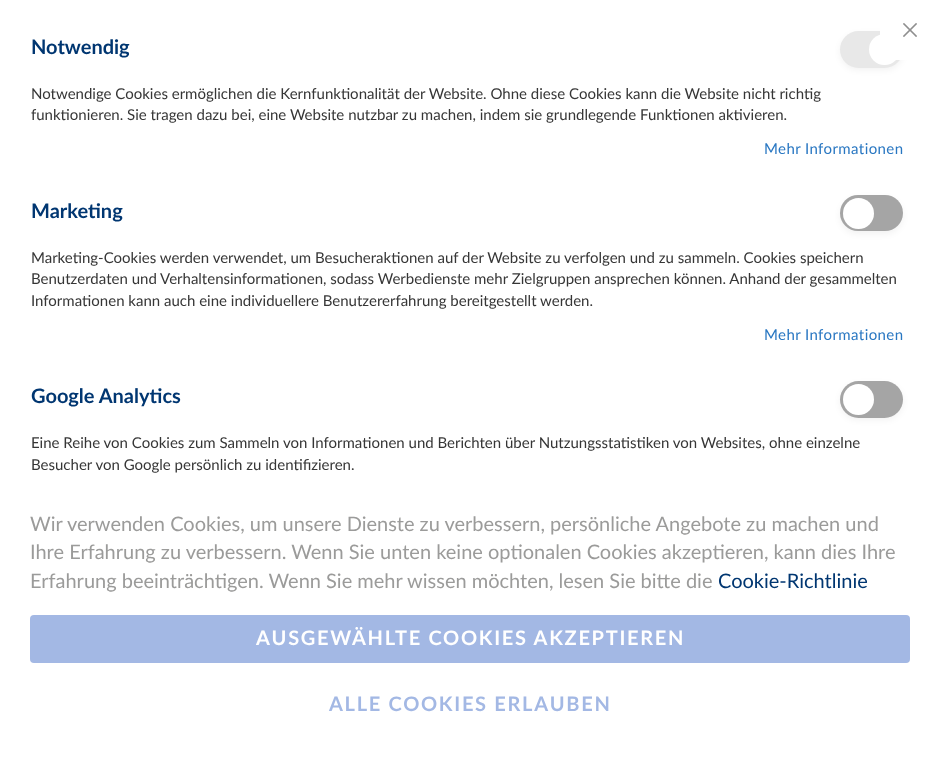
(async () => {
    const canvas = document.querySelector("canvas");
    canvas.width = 939;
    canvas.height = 758;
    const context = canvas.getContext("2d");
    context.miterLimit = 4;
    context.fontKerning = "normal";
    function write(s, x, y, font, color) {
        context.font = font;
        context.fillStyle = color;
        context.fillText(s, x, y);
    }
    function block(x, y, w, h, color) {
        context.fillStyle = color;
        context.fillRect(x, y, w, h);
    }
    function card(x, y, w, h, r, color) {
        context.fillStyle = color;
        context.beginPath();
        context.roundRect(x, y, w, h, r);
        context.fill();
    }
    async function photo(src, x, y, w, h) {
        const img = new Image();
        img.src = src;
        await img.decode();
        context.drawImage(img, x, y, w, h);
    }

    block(0, 0, 939, 758, "rgb(255, 255, 255)");
    context.fillStyle = "rgba(0, 0, 0, 0.05)";
    context.filter = "blur(3px)";
    context.beginPath();
    context.roundRect(840, 34, 63, 36, 18);
    context.fill();
    context.filter = "none";
    card(840, 31, 63, 37, 18.5, "rgb(232, 232, 232)");
    context.fillStyle = "rgb(255, 255, 255)";
    context.beginPath();
    context.arc(884.5, 49.5, 15.5, 0, Math.PI * 2);
    context.fill();
    card(880, 0, 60, 60, 4, "rgb(255, 255, 255)");
    await photo("media/1.png", 903, 23, 14, 14);
    write("Notwendig", 31, 54, "bold 20px Lato", "rgb(0, 54, 113)");
    write("Notwendige Cookies ermöglichen die Kernfunktionalität der Website. Ohne diese Cookies kann die Website nicht richtig", 31, 99, "15px Lato", "rgb(54, 54, 54)");
    write("funktionieren. Sie tragen dazu bei, eine Website nutzbar zu machen, indem sie grundlegende Funktionen aktivieren.", 31, 120, "15px Lato", "rgb(54, 54, 54)");
    context.letterSpacing = "0.4px";
    write("Mehr Informationen", 764, 154, "15px Lato", "rgb(41, 119, 194)");
    context.letterSpacing = "0px";
    write("Marketing", 31, 218, "bold 20px Lato", "rgb(0, 54, 113)");
    context.fillStyle = "rgba(0, 0, 0, 0.05)";
    context.filter = "blur(3px)";
    context.beginPath();
    context.roundRect(840, 198, 63, 36, 18);
    context.fill();
    context.filter = "none";
    card(840, 195, 63, 36, 18, "rgb(165, 165, 165)");
    context.fillStyle = "rgb(255, 255, 255)";
    context.beginPath();
    context.arc(858.5, 213.5, 15.5, 0, Math.PI * 2);
    context.fill();
    write("Marketing-Cookies werden verwendet, um Besucheraktionen auf der Website zu verfolgen und zu sammeln. Cookies speichern", 31, 263, "15px Lato", "rgb(54, 54, 54)");
    write("Benutzerdaten und Verhaltensinformationen, sodass Werbedienste mehr Zielgruppen ansprechen können. Anhand der gesammelten", 31, 284, "15px Lato", "rgb(54, 54, 54)");
    write("Informationen kann auch eine individuellere Benutzererfahrung bereitgestellt werden.", 31, 306, "15px Lato", "rgb(54, 54, 54)");
    context.letterSpacing = "0.4px";
    write("Mehr Informationen", 764, 340, "15px Lato", "rgb(41, 119, 194)");
    context.letterSpacing = "0px";
    write("Google Analytics", 31, 403, "bold 20px Lato", "rgb(0, 54, 113)");
    context.fillStyle = "rgba(0, 0, 0, 0.05)";
    context.filter = "blur(3px)";
    context.beginPath();
    context.roundRect(840, 384, 63, 36, 18);
    context.fill();
    context.filter = "none";
    card(840, 381, 63, 37, 18.5, "rgb(165, 165, 165)");
    context.fillStyle = "rgb(255, 255, 255)";
    context.beginPath();
    context.arc(858.5, 399.5, 15.5, 0, Math.PI * 2);
    context.fill();
    write("Eine Reihe von Cookies zum Sammeln von Informationen und Berichten über Nutzungsstatistiken von Websites, ohne einzelne", 31, 448, "15px Lato", "rgb(54, 54, 54)");
    write("Besucher von Google persönlich zu identifizieren.", 31, 470, "15px Lato", "rgb(54, 54, 54)");
    write("Wir verwenden Cookies, um unsere Dienste zu verbessern, persönliche Angebote zu machen und", 30, 531, "20px Lato", "rgb(155, 155, 154)");
    write("Ihre Erfahrung zu verbessern. Wenn Sie unten keine optionalen Cookies akzeptieren, kann dies Ihre", 30, 559, "20px Lato", "rgb(155, 155, 154)");
    write("Erfahrung beeinträchtigen. Wenn Sie mehr wissen möchten, lesen Sie bitte die", 30, 588, "20px Lato", "rgb(155, 155, 154)");
    write("Cookie-Richtlinie", 718, 588, "20px Lato", "rgb(0, 54, 113)");
    card(30, 615, 880, 48, 4, "rgb(163, 184, 228)");
    context.letterSpacing = "1.7px";
    write("AUSGEWÄHLTE COOKIES AKZEPTIEREN", 256, 645, "bold 20px Lato", "rgb(255, 255, 255)");
    write("ALLE COOKIES ERLAUBEN", 329, 711, "bold 20px Lato", "rgb(163, 184, 228)");
})();
